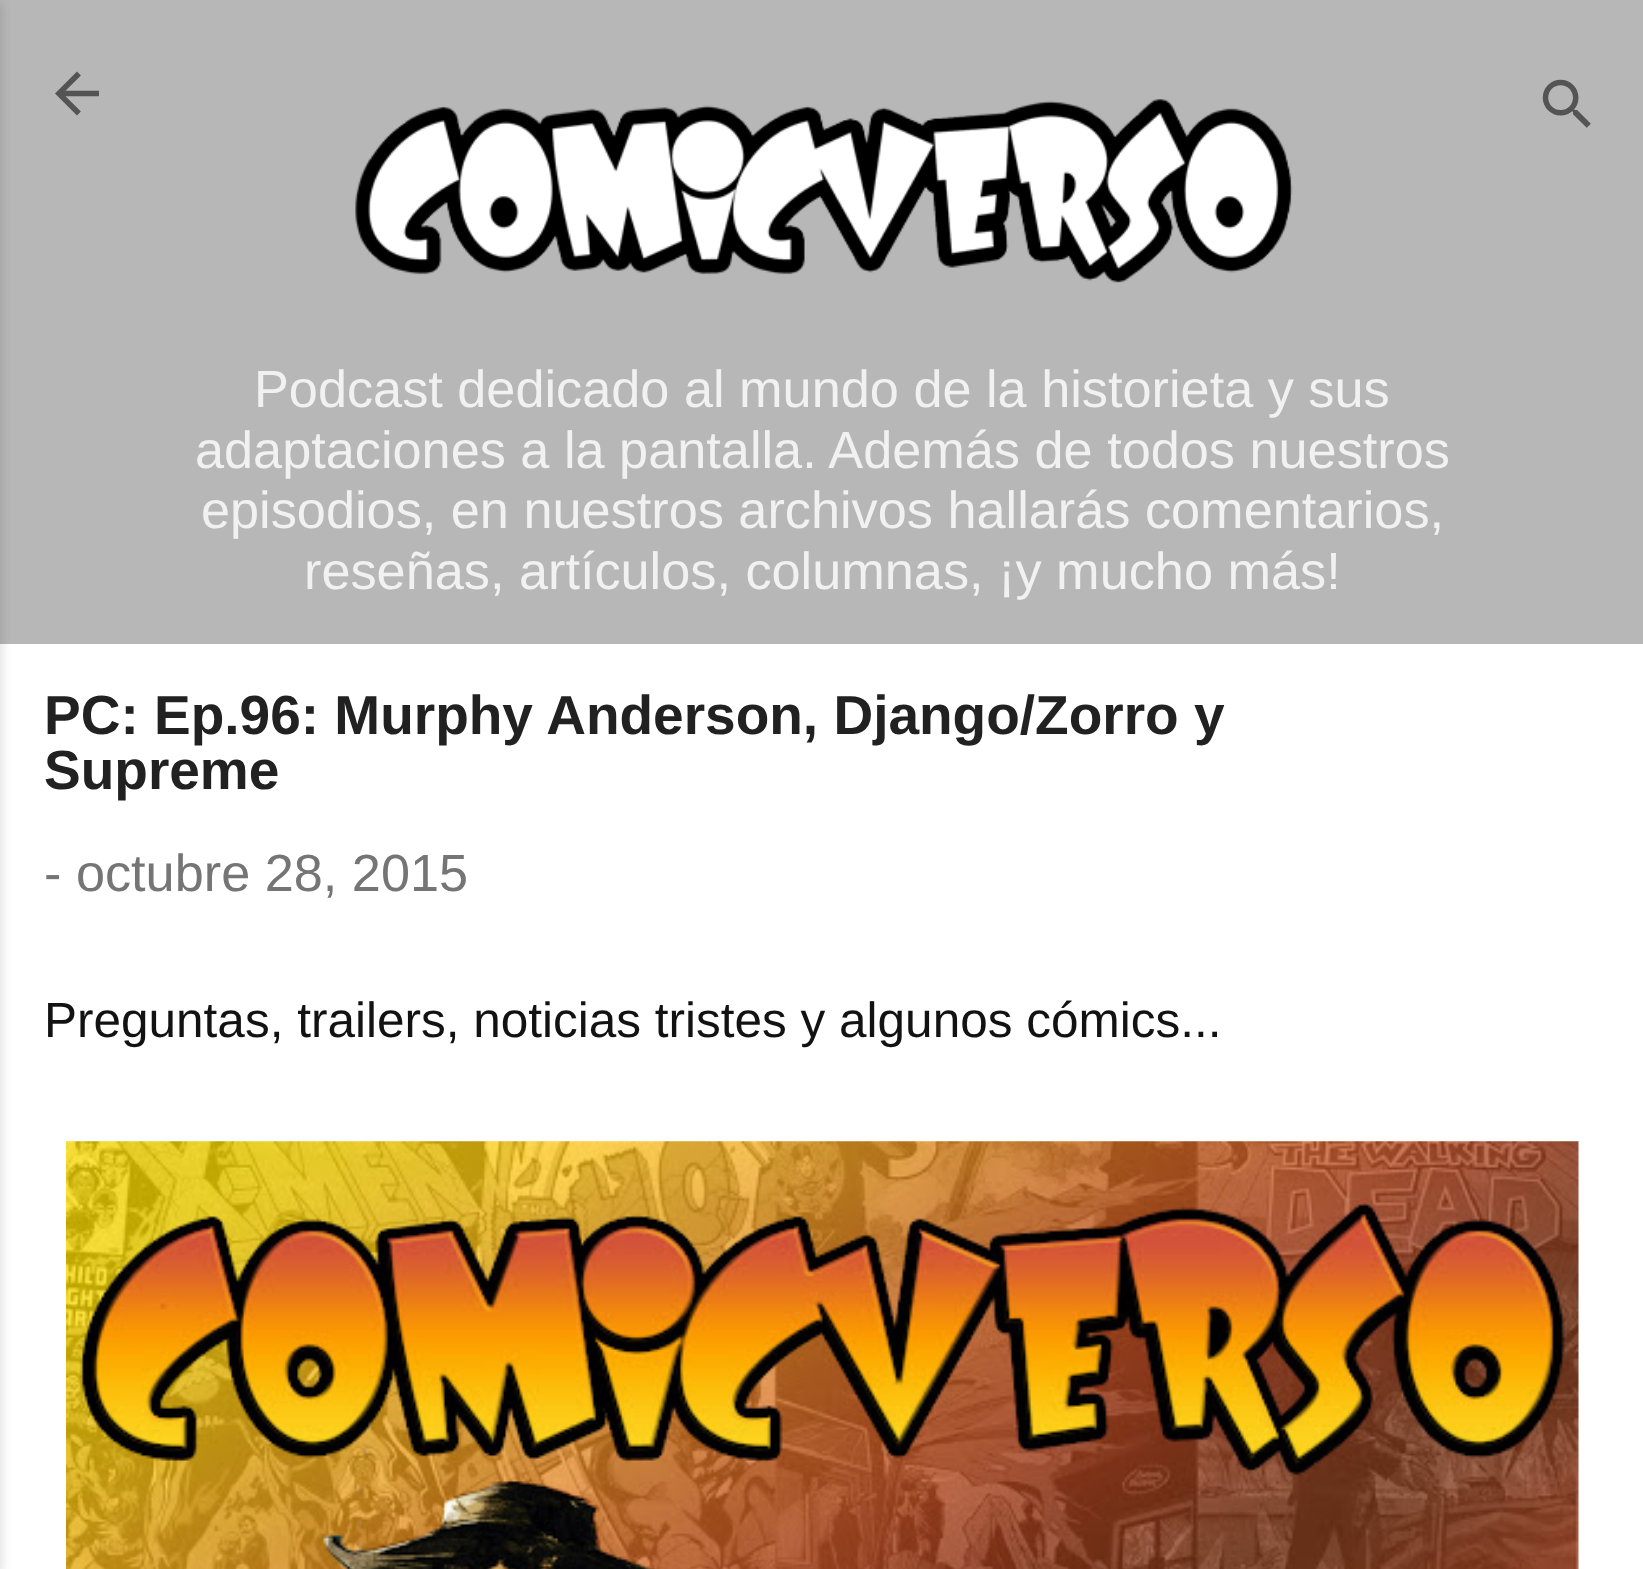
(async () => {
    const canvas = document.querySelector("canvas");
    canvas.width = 1643;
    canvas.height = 1569;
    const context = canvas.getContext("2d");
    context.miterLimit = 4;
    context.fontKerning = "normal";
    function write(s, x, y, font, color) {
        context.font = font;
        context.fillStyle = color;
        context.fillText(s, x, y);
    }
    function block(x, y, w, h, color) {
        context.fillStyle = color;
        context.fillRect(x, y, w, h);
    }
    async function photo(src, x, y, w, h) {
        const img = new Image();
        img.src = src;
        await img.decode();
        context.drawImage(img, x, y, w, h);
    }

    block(0, 0, 1643, 1569, "rgb(183, 183, 183)");
    block(0, 644, 1643, 925, "rgb(255, 255, 255)");
    context.fillStyle = "rgba(0, 0, 0, 0.1)";
    context.filter = "blur(4px)";
    context.beginPath();
    context.rect(-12, 3, 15, 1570);
    context.fill();
    context.filter = "none";
    await photo("media/1.png", 55, 71, 44, 45);
    await photo("media/2.png", 1542, 79, 49, 49);
    await photo("media/3.png", 355, 99, 938, 184);
    write("Podcast dedicado al mundo de la historieta y sus", 254, 407, "52.25px Liberation Sans", "rgb(241, 241, 241)");
    write("adaptaciones a la pantalla. Además de todos nuestros", 195, 468, "52.25px Liberation Sans", "rgb(241, 241, 241)");
    write("episodios, en nuestros archivos hallarás comentarios,", 201, 528, "52.25px Liberation Sans", "rgb(241, 241, 241)");
    write("reseñas, artículos, columnas, ¡y mucho más!", 304, 589, "52.25px Liberation Sans", "rgb(241, 241, 241)");
    write("PC: Ep.96: Murphy Anderson, Django/Zorro y", 44, 734, "bold 55px Liberation Sans", "rgb(33, 33, 33)");
    write("Supreme", 44, 789, "bold 55px Liberation Sans", "rgb(33, 33, 33)");
    write("- octubre 28, 2015", 44, 891, "52.25px Liberation Sans", "rgb(117, 117, 117)");
    write("Preguntas, trailers, noticias tristes y algunos cómics...", 44, 1037, "49.5px Liberation Sans", "rgb(18, 18, 18)");
    await photo("media/4.png", 66, 1141, 1513, 428);
})();
